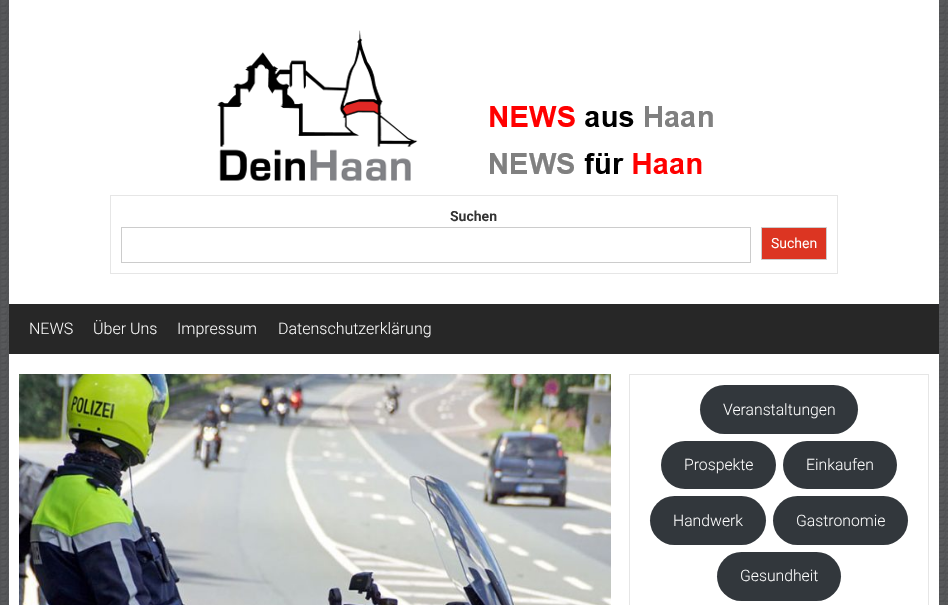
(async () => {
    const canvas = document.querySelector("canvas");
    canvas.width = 948;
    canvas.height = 605;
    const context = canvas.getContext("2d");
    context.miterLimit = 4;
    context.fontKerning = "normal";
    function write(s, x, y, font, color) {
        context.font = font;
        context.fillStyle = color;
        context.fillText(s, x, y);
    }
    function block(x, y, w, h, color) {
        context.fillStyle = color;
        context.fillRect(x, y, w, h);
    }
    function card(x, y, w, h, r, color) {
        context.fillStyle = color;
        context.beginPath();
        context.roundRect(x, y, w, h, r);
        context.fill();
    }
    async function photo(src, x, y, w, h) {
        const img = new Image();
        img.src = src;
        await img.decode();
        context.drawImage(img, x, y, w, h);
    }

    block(0, 0, 948, 605, "rgb(255, 255, 255)");
    await photo("media/1.png", 0, 0, 948, 605);
    block(9, 0, 930, 605, "rgb(255, 255, 255)");
    await photo("media/2.png", 217, 30, 496, 152);
    context.strokeStyle = "rgb(230, 230, 230)";
    context.strokeRect(110.5, 195.5, 727, 78);
    write("Suchen", 450, 221, "bold 14px Roboto", "rgb(51, 51, 51)");
    context.strokeStyle = "rgb(204, 204, 204)";
    context.strokeRect(121.5, 227.5, 629, 35);
    context.fillStyle = "rgb(220, 53, 34)";
    context.beginPath();
    context.rect(761.5, 227.5, 65, 32);
    context.fill();
    context.stroke();
    write("Suchen", 771, 248, "14px Roboto", "rgb(255, 255, 255)");
    block(9, 304, 930, 50, "rgb(39, 39, 39)");
    write("NEWS", 29, 334, "300 16px Roboto", "rgb(255, 255, 255)");
    write("Über Uns", 93, 334, "300 16px Roboto", "rgb(255, 255, 255)");
    write("Impressum", 177, 334, "300 16px Roboto", "rgb(255, 255, 255)");
    write("Datenschutzerklärung", 278, 334, "300 16px Roboto", "rgb(255, 255, 255)");
    await photo("media/3.png", 19, 374, 592, 231);
    context.strokeStyle = "rgb(230, 230, 230)";
    context.strokeRect(629.5, 374.5, 299, 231);
    card(700, 385, 158, 49, 24.5, "rgb(50, 55, 60)");
    write("Veranstaltungen", 723, 415, "300 15.75px Roboto", "rgb(255, 255, 255)");
    card(661, 441, 115, 48, 24, "rgb(50, 55, 60)");
    write("Prospekte", 684, 470, "300 15.75px Roboto", "rgb(255, 255, 255)");
    card(783, 441, 114, 48, 24, "rgb(50, 55, 60)");
    write("Einkaufen", 806, 470, "300 15.75px Roboto", "rgb(255, 255, 255)");
    card(650, 496, 116, 49, 24.5, "rgb(50, 55, 60)");
    write("Handwerk", 673, 526, "300 15.75px Roboto", "rgb(255, 255, 255)");
    card(773, 496, 135, 49, 24.5, "rgb(50, 55, 60)");
    write("Gastronomie", 796, 526, "300 15.75px Roboto", "rgb(255, 255, 255)");
    card(717, 552, 124, 49, 24.5, "rgb(50, 55, 60)");
    write("Gesundheit", 740, 581, "300 15.75px Roboto", "rgb(255, 255, 255)");
})();
